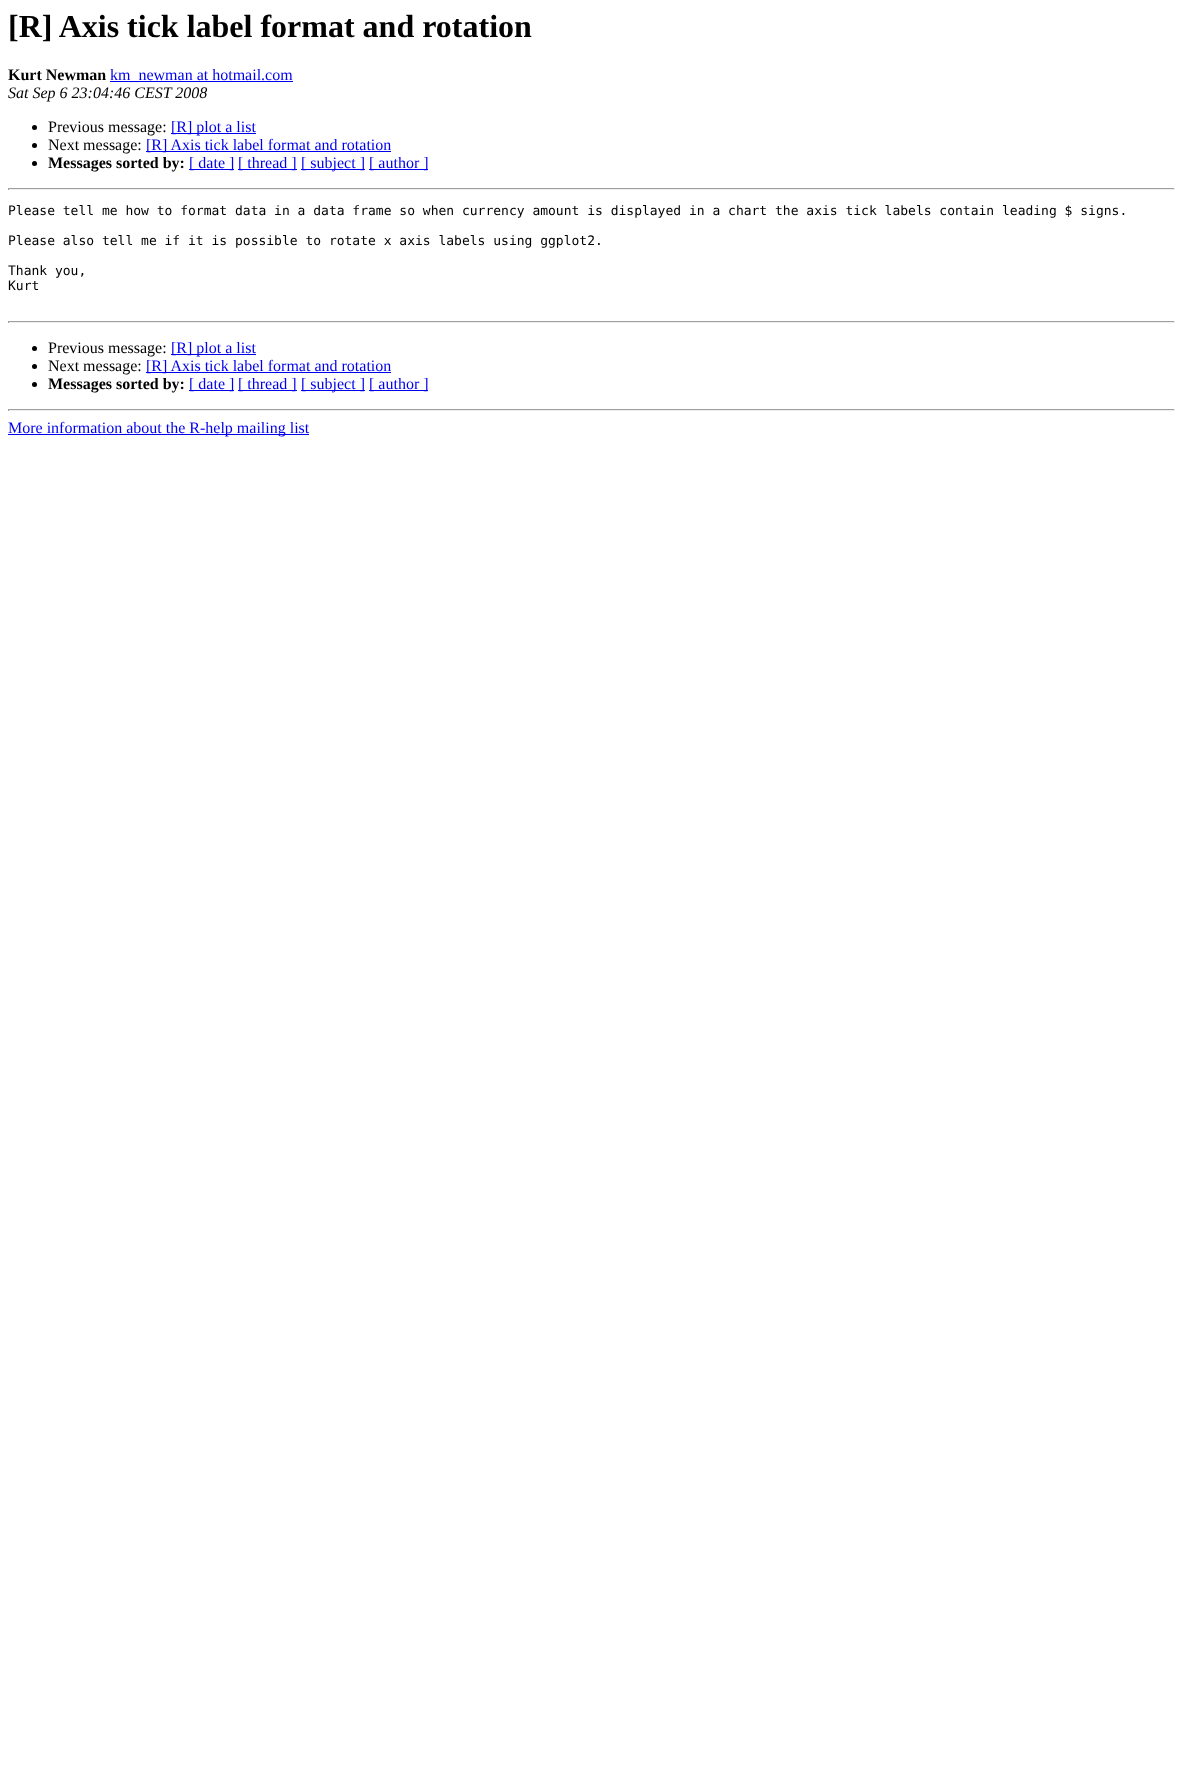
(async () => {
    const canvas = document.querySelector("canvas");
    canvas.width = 1183;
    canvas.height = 1788;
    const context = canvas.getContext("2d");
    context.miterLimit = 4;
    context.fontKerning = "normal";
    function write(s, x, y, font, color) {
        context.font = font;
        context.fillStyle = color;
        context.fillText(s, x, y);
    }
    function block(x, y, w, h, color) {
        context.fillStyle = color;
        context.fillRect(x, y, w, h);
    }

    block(0, 0, 1183, 1788, "rgb(255, 255, 255)");
    write("[R] Axis tick label format and rotation", 8, 37, "bold 32px Liberation Serif", "rgb(0, 0, 0)");
    write("Kurt Newman", 8, 80, "bold 16px Liberation Serif", "rgb(0, 0, 0)");
    block(110, 81, 183, 1, "rgb(0, 0, 238)");
    write("km_newman at hotmail.com", 110, 80, "16px Liberation Serif", "rgb(0, 0, 238)");
    write("Sat Sep 6 23:04:46 CEST 2008", 8, 98, "italic 16px Liberation Serif", "rgb(0, 0, 0)");
    context.beginPath();
    context.arc(34.5, 127.5, 2.5, 0, Math.PI * 2);
    context.fill();
    write("Previous message:", 48, 132, "16px Liberation Serif", "rgb(0, 0, 0)");
    block(171, 133, 85, 1, "rgb(0, 0, 238)");
    write("[R] plot a list", 171, 132, "16px Liberation Serif", "rgb(0, 0, 238)");
    context.fillStyle = "rgb(0, 0, 0)";
    context.beginPath();
    context.arc(34.5, 145.5, 2.5, 0, Math.PI * 2);
    context.fill();
    write("Next message:", 48, 150, "16px Liberation Serif", "rgb(0, 0, 0)");
    block(146, 151, 245, 1, "rgb(0, 0, 238)");
    write("[R] Axis tick label format and rotation", 146, 150, "16px Liberation Serif", "rgb(0, 0, 238)");
    context.fillStyle = "rgb(0, 0, 0)";
    context.beginPath();
    context.arc(34.5, 163.5, 2.5, 0, Math.PI * 2);
    context.fill();
    write("Messages sorted by:", 48, 168, "bold 16px Liberation Serif", "rgb(0, 0, 0)");
    block(189, 169, 45, 1, "rgb(0, 0, 238)");
    write("[ date ]", 189, 168, "16px Liberation Serif", "rgb(0, 0, 238)");
    block(238, 169, 59, 1, "rgb(0, 0, 238)");
    write("[ thread ]", 238, 168, "16px Liberation Serif", "rgb(0, 0, 238)");
    block(301, 169, 64, 1, "rgb(0, 0, 238)");
    write("[ subject ]", 301, 168, "16px Liberation Serif", "rgb(0, 0, 238)");
    block(369, 169, 59, 1, "rgb(0, 0, 238)");
    write("[ author ]", 369, 168, "16px Liberation Serif", "rgb(0, 0, 238)");
    block(8, 188, 1167, 1, "rgb(159, 159, 159)");
    block(1174, 188, 1, 2, "rgb(238, 238, 238)");
    block(8, 189, 1167, 1, "rgb(238, 238, 238)");
    block(8, 188, 1, 2, "rgb(159, 159, 159)");
    write("Please tell me how to format data in a data frame so when currency amount is displayed in a chart the axis tick labels contain leading $ signs.", 8, 215, "13px DejaVu Sans Mono", "rgb(0, 0, 0)");
    write("Please also tell me if it is possible to rotate x axis labels using ggplot2.", 8, 245, "13px DejaVu Sans Mono", "rgb(0, 0, 0)");
    write("Thank you,", 8, 275, "13px DejaVu Sans Mono", "rgb(0, 0, 0)");
    write("Kurt", 8, 290, "13px DejaVu Sans Mono", "rgb(0, 0, 0)");
    block(8, 321, 1167, 1, "rgb(159, 159, 159)");
    block(1174, 321, 1, 2, "rgb(238, 238, 238)");
    block(8, 322, 1167, 1, "rgb(238, 238, 238)");
    block(8, 321, 1, 2, "rgb(159, 159, 159)");
    context.fillStyle = "rgb(0, 0, 0)";
    context.beginPath();
    context.arc(34.5, 348.5, 2.5, 0, Math.PI * 2);
    context.fill();
    write("Previous message:", 48, 353, "16px Liberation Serif", "rgb(0, 0, 0)");
    block(171, 354, 85, 1, "rgb(0, 0, 238)");
    write("[R] plot a list", 171, 353, "16px Liberation Serif", "rgb(0, 0, 238)");
    context.fillStyle = "rgb(0, 0, 0)";
    context.beginPath();
    context.arc(34.5, 366.5, 2.5, 0, Math.PI * 2);
    context.fill();
    write("Next message:", 48, 371, "16px Liberation Serif", "rgb(0, 0, 0)");
    block(146, 372, 245, 1, "rgb(0, 0, 238)");
    write("[R] Axis tick label format and rotation", 146, 371, "16px Liberation Serif", "rgb(0, 0, 238)");
    context.fillStyle = "rgb(0, 0, 0)";
    context.beginPath();
    context.arc(34.5, 384.5, 2.5, 0, Math.PI * 2);
    context.fill();
    write("Messages sorted by:", 48, 389, "bold 16px Liberation Serif", "rgb(0, 0, 0)");
    block(189, 390, 45, 1, "rgb(0, 0, 238)");
    write("[ date ]", 189, 389, "16px Liberation Serif", "rgb(0, 0, 238)");
    block(238, 390, 59, 1, "rgb(0, 0, 238)");
    write("[ thread ]", 238, 389, "16px Liberation Serif", "rgb(0, 0, 238)");
    block(301, 390, 64, 1, "rgb(0, 0, 238)");
    write("[ subject ]", 301, 389, "16px Liberation Serif", "rgb(0, 0, 238)");
    block(369, 390, 59, 1, "rgb(0, 0, 238)");
    write("[ author ]", 369, 389, "16px Liberation Serif", "rgb(0, 0, 238)");
    block(8, 409, 1167, 1, "rgb(159, 159, 159)");
    block(1174, 409, 1, 2, "rgb(238, 238, 238)");
    block(8, 410, 1167, 1, "rgb(238, 238, 238)");
    block(8, 409, 1, 2, "rgb(159, 159, 159)");
    block(8, 434, 301, 1, "rgb(0, 0, 238)");
    write("More information about the R-help mailing list", 8, 433, "16px Liberation Serif", "rgb(0, 0, 238)");
})();
